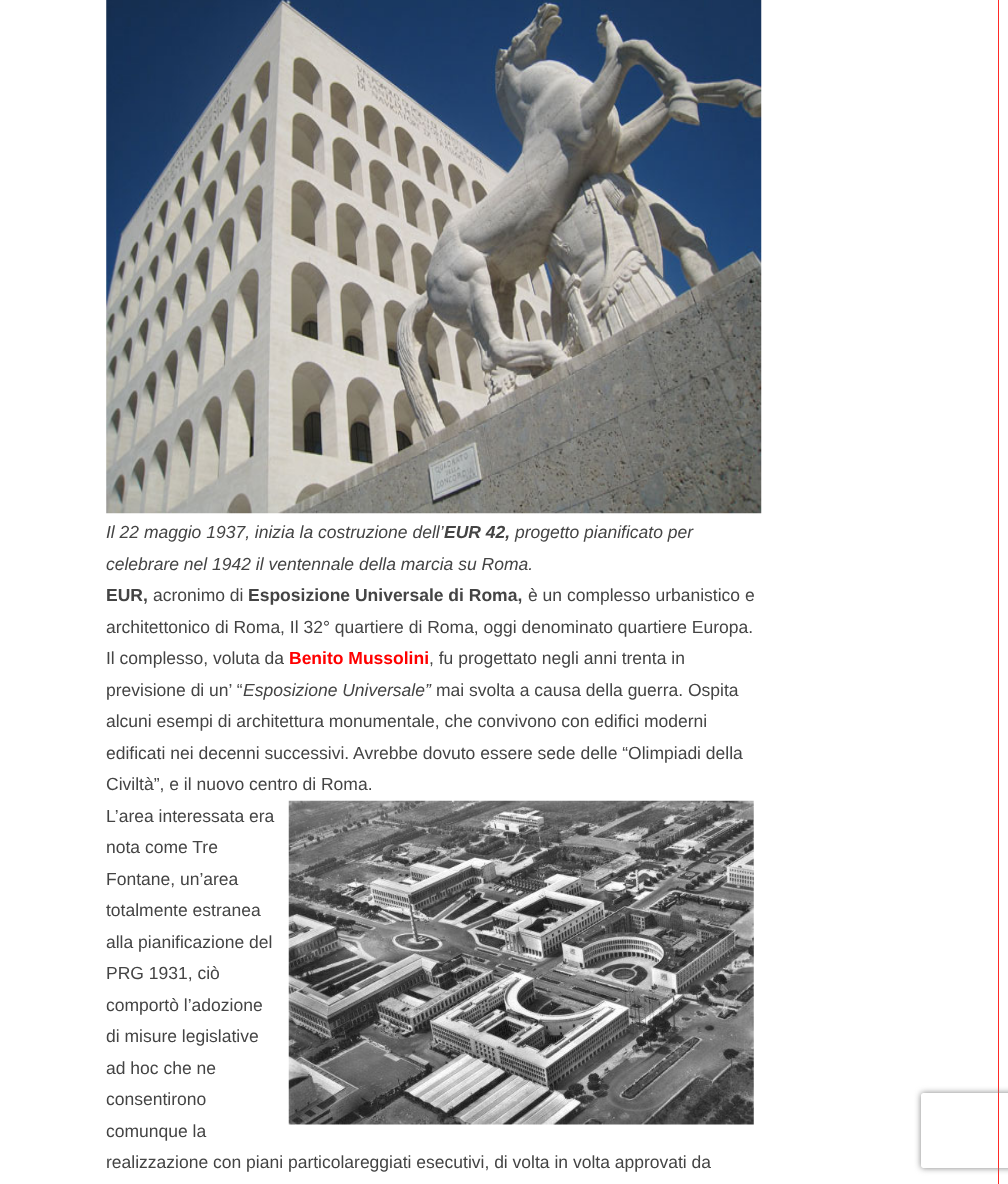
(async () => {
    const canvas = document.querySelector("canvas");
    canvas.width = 1008;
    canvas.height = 1184;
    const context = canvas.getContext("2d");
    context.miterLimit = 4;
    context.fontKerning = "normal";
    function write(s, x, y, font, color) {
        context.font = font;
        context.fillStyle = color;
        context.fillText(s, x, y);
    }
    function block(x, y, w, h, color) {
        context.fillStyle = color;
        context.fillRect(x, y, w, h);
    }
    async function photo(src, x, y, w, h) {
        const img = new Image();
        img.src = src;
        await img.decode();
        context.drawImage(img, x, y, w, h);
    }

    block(0, 0, 1008, 1184, "rgb(255, 255, 255)");
    block(998, 0, 1, 1184, "rgb(255, 42, 39)");
    await photo("media/1.png", 106, 0, 656, 514);
    write("Il 22 maggio 1937, inizia la costruzione dell’", 106, 538, "italic 17.5px Liberation Sans", "rgb(68, 68, 68)");
    write("EUR 42,", 444, 538, "italic bold 17.5px Liberation Sans", "rgb(68, 68, 68)");
    write("progetto pianificato per", 515, 538, "italic 17.5px Liberation Sans", "rgb(68, 68, 68)");
    write("celebrare nel 1942 il ventennale della marcia su Roma.", 106, 570, "italic 17.5px Liberation Sans", "rgb(68, 68, 68)");
    write("EUR,", 106, 601, "bold 17.5px Liberation Sans", "rgb(68, 68, 68)");
    write("acronimo di", 153, 601, "17.5px Liberation Sans", "rgb(68, 68, 68)");
    write("Esposizione Universale di Roma,", 248, 601, "bold 17.5px Liberation Sans", "rgb(68, 68, 68)");
    write("è un complesso urbanistico e", 528, 601, "17.5px Liberation Sans", "rgb(68, 68, 68)");
    write("architettonico di Roma, Il 32° quartiere di Roma, oggi denominato quartiere Europa.", 106, 633, "17.5px Liberation Sans", "rgb(68, 68, 68)");
    write("Il complesso, voluta da", 106, 664, "17.5px Liberation Sans", "rgb(68, 68, 68)");
    write("Benito Mussolini", 289, 664, "bold 17.5px Liberation Sans", "rgb(255, 0, 0)");
    write(", fu progettato negli anni trenta in", 429, 664, "17.5px Liberation Sans", "rgb(68, 68, 68)");
    write("previsione di un’ “", 106, 696, "17.5px Liberation Sans", "rgb(68, 68, 68)");
    write("Esposizione Universale”", 243, 696, "italic 17.5px Liberation Sans", "rgb(68, 68, 68)");
    write("mai svolta a causa della guerra. Ospita", 436, 696, "17.5px Liberation Sans", "rgb(68, 68, 68)");
    write("alcuni esempi di architettura monumentale, che convivono con edifici moderni", 106, 727, "17.5px Liberation Sans", "rgb(68, 68, 68)");
    write("edificati nei decenni successivi. Avrebbe dovuto essere sede delle “Olimpiadi della", 106, 759, "17.5px Liberation Sans", "rgb(68, 68, 68)");
    write("Civiltà”, e il nuovo centro di Roma.", 106, 790, "17.5px Liberation Sans", "rgb(68, 68, 68)");
    write("L’area interessata era", 106, 822, "17.5px Liberation Sans", "rgb(68, 68, 68)");
    await photo("media/2.png", 288, 800, 466, 325);
    write("nota come Tre", 106, 853, "17.5px Liberation Sans", "rgb(68, 68, 68)");
    write("Fontane, un’area", 106, 885, "17.5px Liberation Sans", "rgb(68, 68, 68)");
    write("totalmente estranea", 106, 916, "17.5px Liberation Sans", "rgb(68, 68, 68)");
    write("alla pianificazione del", 106, 948, "17.5px Liberation Sans", "rgb(68, 68, 68)");
    write("PRG 1931, ciò", 106, 979, "17.5px Liberation Sans", "rgb(68, 68, 68)");
    write("comportò l’adozione", 106, 1011, "17.5px Liberation Sans", "rgb(68, 68, 68)");
    write("di misure legislative", 106, 1042, "17.5px Liberation Sans", "rgb(68, 68, 68)");
    write("ad hoc che ne", 106, 1074, "17.5px Liberation Sans", "rgb(68, 68, 68)");
    write("consentirono", 106, 1105, "17.5px Liberation Sans", "rgb(68, 68, 68)");
    write("comunque la", 106, 1137, "17.5px Liberation Sans", "rgb(68, 68, 68)");
    write("realizzazione con piani particolareggiati esecutivi, di volta in volta approvati da", 106, 1168, "17.5px Liberation Sans", "rgb(68, 68, 68)");
    context.save();
    context.beginPath();
    context.moveTo(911, 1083);
    context.lineTo(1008, 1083);
    context.lineTo(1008, 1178);
    context.lineTo(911, 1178);
    context.closePath();
    context.moveTo(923.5, 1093);
    context.lineTo(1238.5, 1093);
    context.bezierCurveTo(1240, 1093, 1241, 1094, 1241, 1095.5);
    context.lineTo(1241, 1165.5);
    context.bezierCurveTo(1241, 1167, 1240, 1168, 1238.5, 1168);
    context.lineTo(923.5, 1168);
    context.bezierCurveTo(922, 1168, 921, 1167, 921, 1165.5);
    context.lineTo(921, 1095.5);
    context.bezierCurveTo(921, 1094, 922, 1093, 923.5, 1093);
    context.closePath();
    context.clip("evenodd");
    context.fillStyle = "rgb(128, 128, 128)";
    context.filter = "blur(3px)";
    context.beginPath();
    context.roundRect(921, 1093, 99, 75, 2.5);
    context.fill();
    context.filter = "none";
    context.restore();
})();
